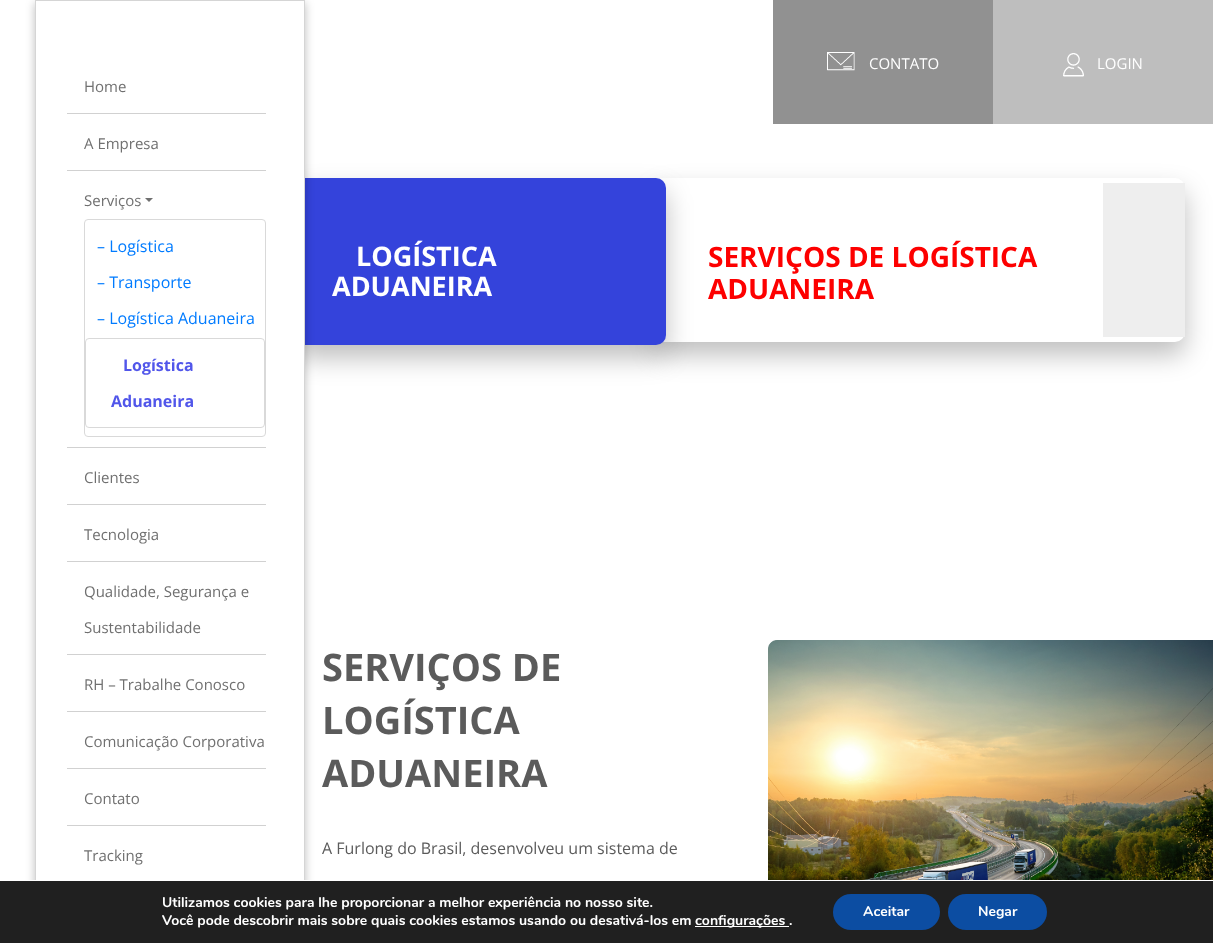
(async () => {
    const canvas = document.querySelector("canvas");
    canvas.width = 1213;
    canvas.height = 943;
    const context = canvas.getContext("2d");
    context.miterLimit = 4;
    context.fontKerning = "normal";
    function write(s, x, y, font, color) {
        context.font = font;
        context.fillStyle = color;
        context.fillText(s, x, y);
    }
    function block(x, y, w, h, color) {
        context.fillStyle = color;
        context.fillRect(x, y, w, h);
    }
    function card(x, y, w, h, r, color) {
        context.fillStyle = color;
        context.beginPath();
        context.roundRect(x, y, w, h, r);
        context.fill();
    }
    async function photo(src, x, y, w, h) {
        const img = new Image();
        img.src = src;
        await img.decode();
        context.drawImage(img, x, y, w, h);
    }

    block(0, 0, 1213, 943, "rgb(255, 255, 255)");
    block(773, 0, 220, 124, "rgb(145, 145, 145)");
    await photo("media/1.png", 827, 52, 28, 19);
    write("CONTATO", 869, 69, "15px Open Sans", "rgb(255, 255, 255)");
    block(993, 0, 220, 124, "rgb(190, 190, 190)");
    await photo("media/2.png", 1063, 53, 21, 24);
    write("LOGIN", 1097, 69, "15px Open Sans", "rgb(255, 255, 255)");
    context.fillStyle = "rgba(0, 0, 0, 0.25)";
    context.filter = "blur(13px)";
    context.beginPath();
    context.roundRect(656, 191, 529, 164, 10);
    context.fill();
    context.filter = "none";
    context.fillStyle = "rgb(255, 255, 255)";
    context.beginPath();
    context.roundRect(656, 178, 529, 164, [0, 10, 10, 0]);
    context.fill();
    context.fillStyle = "rgba(0, 0, 0, 0.25)";
    context.filter = "blur(13px)";
    context.beginPath();
    context.roundRect(295, 191, 371, 167, 10);
    context.fill();
    context.filter = "none";
    card(295, 178, 371, 167, 10, "rgb(52, 67, 219)");
    context.fillStyle = "rgba(0, 0, 0, 0.26)";
    context.filter = "blur(5px)";
    context.beginPath();
    context.rect(35, 3, 270, 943);
    context.fill();
    context.filter = "none";
    block(36, 1, 268, 879, "rgb(255, 255, 255)");
    context.strokeStyle = "rgb(213, 213, 213)";
    context.strokeRect(35.5, 0.5, 269, 942);
    block(67, 113, 199, 1, "rgb(209, 209, 209)");
    write("Home", 84, 92, "15px Open Sans", "rgb(112, 112, 112)");
    block(67, 170, 199, 1, "rgb(209, 209, 209)");
    write("A Empresa", 84, 149, "15px Open Sans", "rgb(112, 112, 112)");
    block(67, 447, 199, 1, "rgb(209, 209, 209)");
    write("Serviços", 84, 206, "15px Open Sans", "rgb(112, 112, 112)");
    context.beginPath();
    context.moveTo(145, 198);
    context.lineTo(153, 198);
    context.lineTo(149, 202);
    context.closePath();
    context.fill();
    context.beginPath();
    context.roundRect(84.5, 219.5, 181, 217, 3.5);
    context.strokeStyle = "rgb(217, 217, 217)";
    context.stroke();
    write("– Logística", 97, 252, "16px Open Sans", "rgb(0, 123, 255)");
    write("– Transporte", 97, 288, "16px Open Sans", "rgb(0, 123, 255)");
    write("– Logística Aduaneira", 97, 324, "16px Open Sans", "rgb(0, 123, 255)");
    context.beginPath();
    context.roundRect(85.5, 338.5, 179, 89, 3.5);
    context.stroke();
    write("Logística", 123, 371, "bold 16px Open Sans", "rgb(81, 86, 234)");
    write("Aduaneira", 111, 407, "bold 16px Open Sans", "rgb(81, 86, 234)");
    block(67, 504, 199, 1, "rgb(209, 209, 209)");
    write("Clientes", 84, 483, "15px Open Sans", "rgb(112, 112, 112)");
    block(67, 561, 199, 1, "rgb(209, 209, 209)");
    write("Tecnologia", 84, 540, "15px Open Sans", "rgb(112, 112, 112)");
    block(67, 654, 199, 1, "rgb(209, 209, 209)");
    write("Qualidade, Segurança e", 84, 597, "15px Open Sans", "rgb(112, 112, 112)");
    write("Sustentabilidade", 84, 633, "15px Open Sans", "rgb(112, 112, 112)");
    block(67, 711, 199, 1, "rgb(209, 209, 209)");
    write("RH – Trabalhe Conosco", 84, 690, "15px Open Sans", "rgb(112, 112, 112)");
    block(67, 768, 199, 1, "rgb(209, 209, 209)");
    write("Comunicação Corporativa", 84, 747, "15px Open Sans", "rgb(112, 112, 112)");
    block(67, 825, 199, 1, "rgb(209, 209, 209)");
    write("Contato", 84, 804, "15px Open Sans", "rgb(112, 112, 112)");
    write("Tracking", 84, 861, "15px Open Sans", "rgb(112, 112, 112)");
    write("LOGÍSTICA", 356, 266, "bold 27px Open Sans", "rgb(255, 255, 255)");
    write("ADUANEIRA", 332, 296, "bold 27px Open Sans", "rgb(255, 255, 255)");
    block(1103, 183, 82, 154, "rgb(238, 238, 238)");
    write("SERVIÇOS DE LOGÍSTICA", 708, 267, "bold 28px Open Sans", "rgb(253, 0, 0)");
    write("ADUANEIRA", 708, 299, "bold 28px Open Sans", "rgb(253, 0, 0)");
    write("SERVIÇOS DE", 322, 681, "bold 38px Open Sans", "rgb(91, 91, 91)");
    write("LOGÍSTICA", 322, 734, "bold 38px Open Sans", "rgb(91, 91, 91)");
    write("ADUANEIRA", 322, 787, "bold 38px Open Sans", "rgb(91, 91, 91)");
    write("A Furlong do Brasil, desenvolveu um sistema de", 322, 854, "16px Open Sans", "rgb(91, 91, 91)");
    await photo("media/3.png", 768, 640, 445, 240);
    block(0, 881, 1213, 62, "rgb(32, 32, 32)");
    block(26, 880, 288, 1, "rgb(255, 255, 255)");
    write("Utilizamos cookies para lhe proporcionar a melhor experiência no nosso site.", 162, 907, "bold 14px Nunito", "rgb(255, 255, 255)");
    write("Você pode descobrir mais sobre quais cookies estamos usando ou desativá-los em", 162, 925, "bold 14px Nunito", "rgb(255, 255, 255)");
    block(695, 926, 94, 1, "rgb(255, 255, 255)");
    write("configurações .", 695, 925, "bold 14px Nunito", "rgb(255, 255, 255)");
    card(833, 894, 107, 36, 18, "rgb(12, 77, 162)");
    write("Aceitar", 863, 916, "bold 14px Nunito", "rgb(255, 255, 255)");
    card(948, 894, 99, 36, 18, "rgb(12, 77, 162)");
    write("Negar", 978, 916, "bold 14px Nunito", "rgb(255, 255, 255)");
})();
